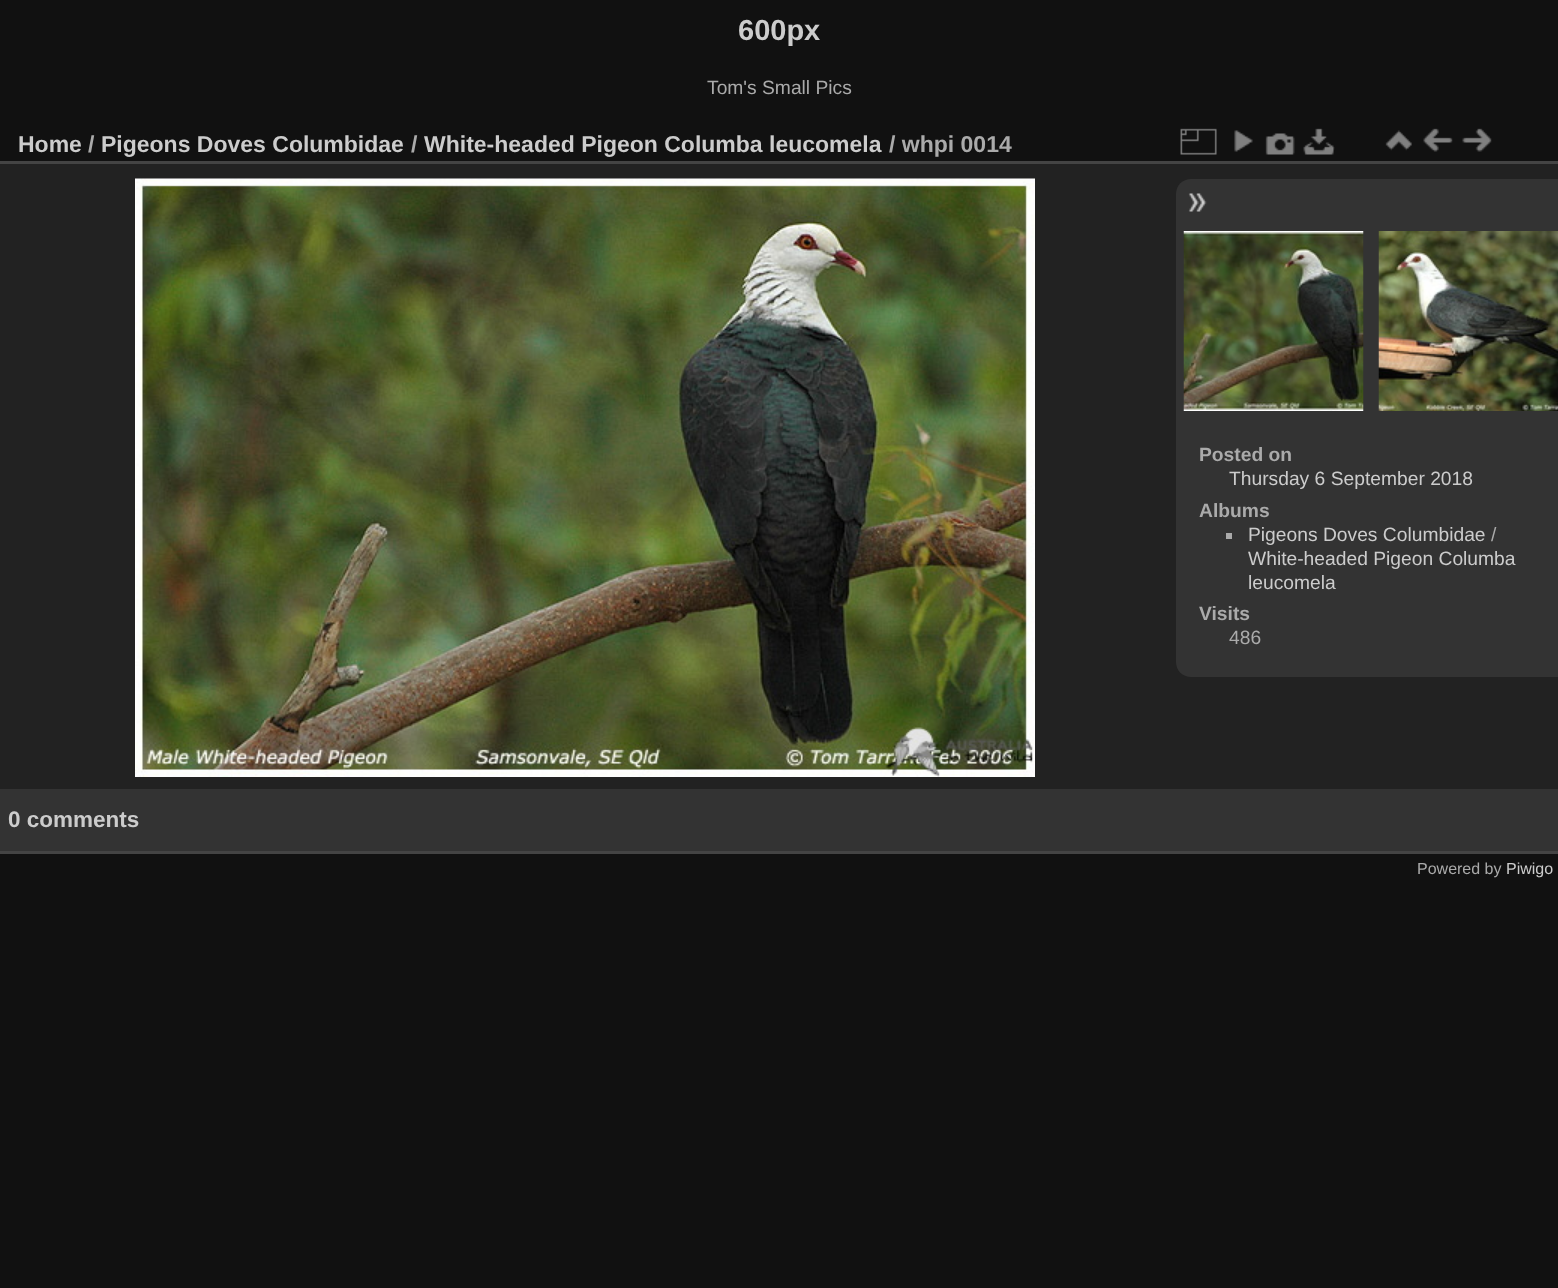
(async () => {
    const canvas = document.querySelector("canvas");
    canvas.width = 1558;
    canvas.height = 1288;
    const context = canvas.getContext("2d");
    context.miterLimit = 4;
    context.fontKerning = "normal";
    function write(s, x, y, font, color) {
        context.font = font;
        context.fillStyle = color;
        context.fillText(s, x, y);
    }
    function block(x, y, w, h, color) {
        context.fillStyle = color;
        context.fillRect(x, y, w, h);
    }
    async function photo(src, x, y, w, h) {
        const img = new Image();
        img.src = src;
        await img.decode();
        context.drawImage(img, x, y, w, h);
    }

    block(0, 0, 1558, 1288, "rgb(17, 17, 17)");
    write("600px", 738, 40, "bold 29px Liberation Sans", "rgb(204, 204, 204)");
    write("Tom's Small Pics", 707, 94, "19.25px Liberation Sans", "rgb(170, 170, 170)");
    block(0, 164, 1558, 625, "rgb(34, 34, 34)");
    block(0, 851, 1558, 3, "rgb(68, 68, 68)");
    block(0, 161, 1558, 3, "rgb(68, 68, 68)");
    write("Home", 18, 152, "bold 23px Liberation Sans", "rgb(204, 204, 204)");
    write("/", 88, 152, "bold 23px Liberation Sans", "rgb(170, 170, 170)");
    write("Pigeons Doves Columbidae", 101, 152, "bold 23px Liberation Sans", "rgb(204, 204, 204)");
    write("/", 411, 152, "bold 23px Liberation Sans", "rgb(170, 170, 170)");
    write("White-headed Pigeon Columba leucomela", 424, 152, "bold 23px Liberation Sans", "rgb(204, 204, 204)");
    write("/ whpi 0014", 889, 152, "bold 23px Liberation Sans", "rgb(170, 170, 170)");
    await photo("media/1.png", 1180, 128, 37, 27);
    await photo("media/2.png", 1234, 130, 19, 22);
    await photo("media/3.png", 1265, 133, 30, 22);
    await photo("media/4.png", 1303, 128, 32, 27);
    await photo("media/5.png", 1385, 130, 27, 21);
    await photo("media/6.png", 1423, 128, 30, 24);
    await photo("media/7.png", 1462, 128, 30, 24);
    await photo("media/8.png", 135, 178, 900, 599);
    context.fillStyle = "rgb(51, 51, 51)";
    context.beginPath();
    context.moveTo(1191, 179);
    context.lineTo(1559, 179);
    context.lineTo(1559, 677);
    context.lineTo(1191, 677);
    context.bezierCurveTo(1182.5, 677, 1176, 670.5, 1176, 662);
    context.lineTo(1176, 194);
    context.bezierCurveTo(1176, 185.5, 1182.5, 179, 1191, 179);
    context.closePath();
    context.fill();
    await photo("media/9.png", 1188, 193, 19, 19);
    await photo("media/10.png", 1183, 231, 181, 180);
    await photo("media/11.png", 1378, 231, 180, 180);
    write("Posted on", 1199, 461, "bold 19.25px Liberation Sans", "rgb(170, 170, 170)");
    write("Thursday 6 September 2018", 1229, 485, "19.25px Liberation Sans", "rgb(204, 204, 204)");
    write("Albums", 1199, 517, "bold 19.25px Liberation Sans", "rgb(170, 170, 170)");
    block(1226, 533, 6, 6, "rgb(170, 170, 170)");
    write("Pigeons Doves Columbidae", 1248, 541, "19.25px Liberation Sans", "rgb(204, 204, 204)");
    write("/", 1491, 541, "19.25px Liberation Sans", "rgb(170, 170, 170)");
    write("White-headed Pigeon Columba", 1248, 565, "19.25px Liberation Sans", "rgb(204, 204, 204)");
    write("leucomela", 1248, 589, "19.25px Liberation Sans", "rgb(204, 204, 204)");
    write("Visits", 1199, 620, "bold 19.25px Liberation Sans", "rgb(170, 170, 170)");
    write("486", 1229, 644, "19.25px Liberation Sans", "rgb(170, 170, 170)");
    block(0, 789, 1558, 62, "rgb(51, 51, 51)");
    write("0 comments", 8, 827, "bold 22.5px Liberation Sans", "rgb(204, 204, 204)");
    write("Powered by", 1417, 874, "16px Liberation Sans", "rgb(170, 170, 170)");
    write("Piwigo", 1506, 874, "16px Liberation Sans", "rgb(204, 204, 204)");
})();
